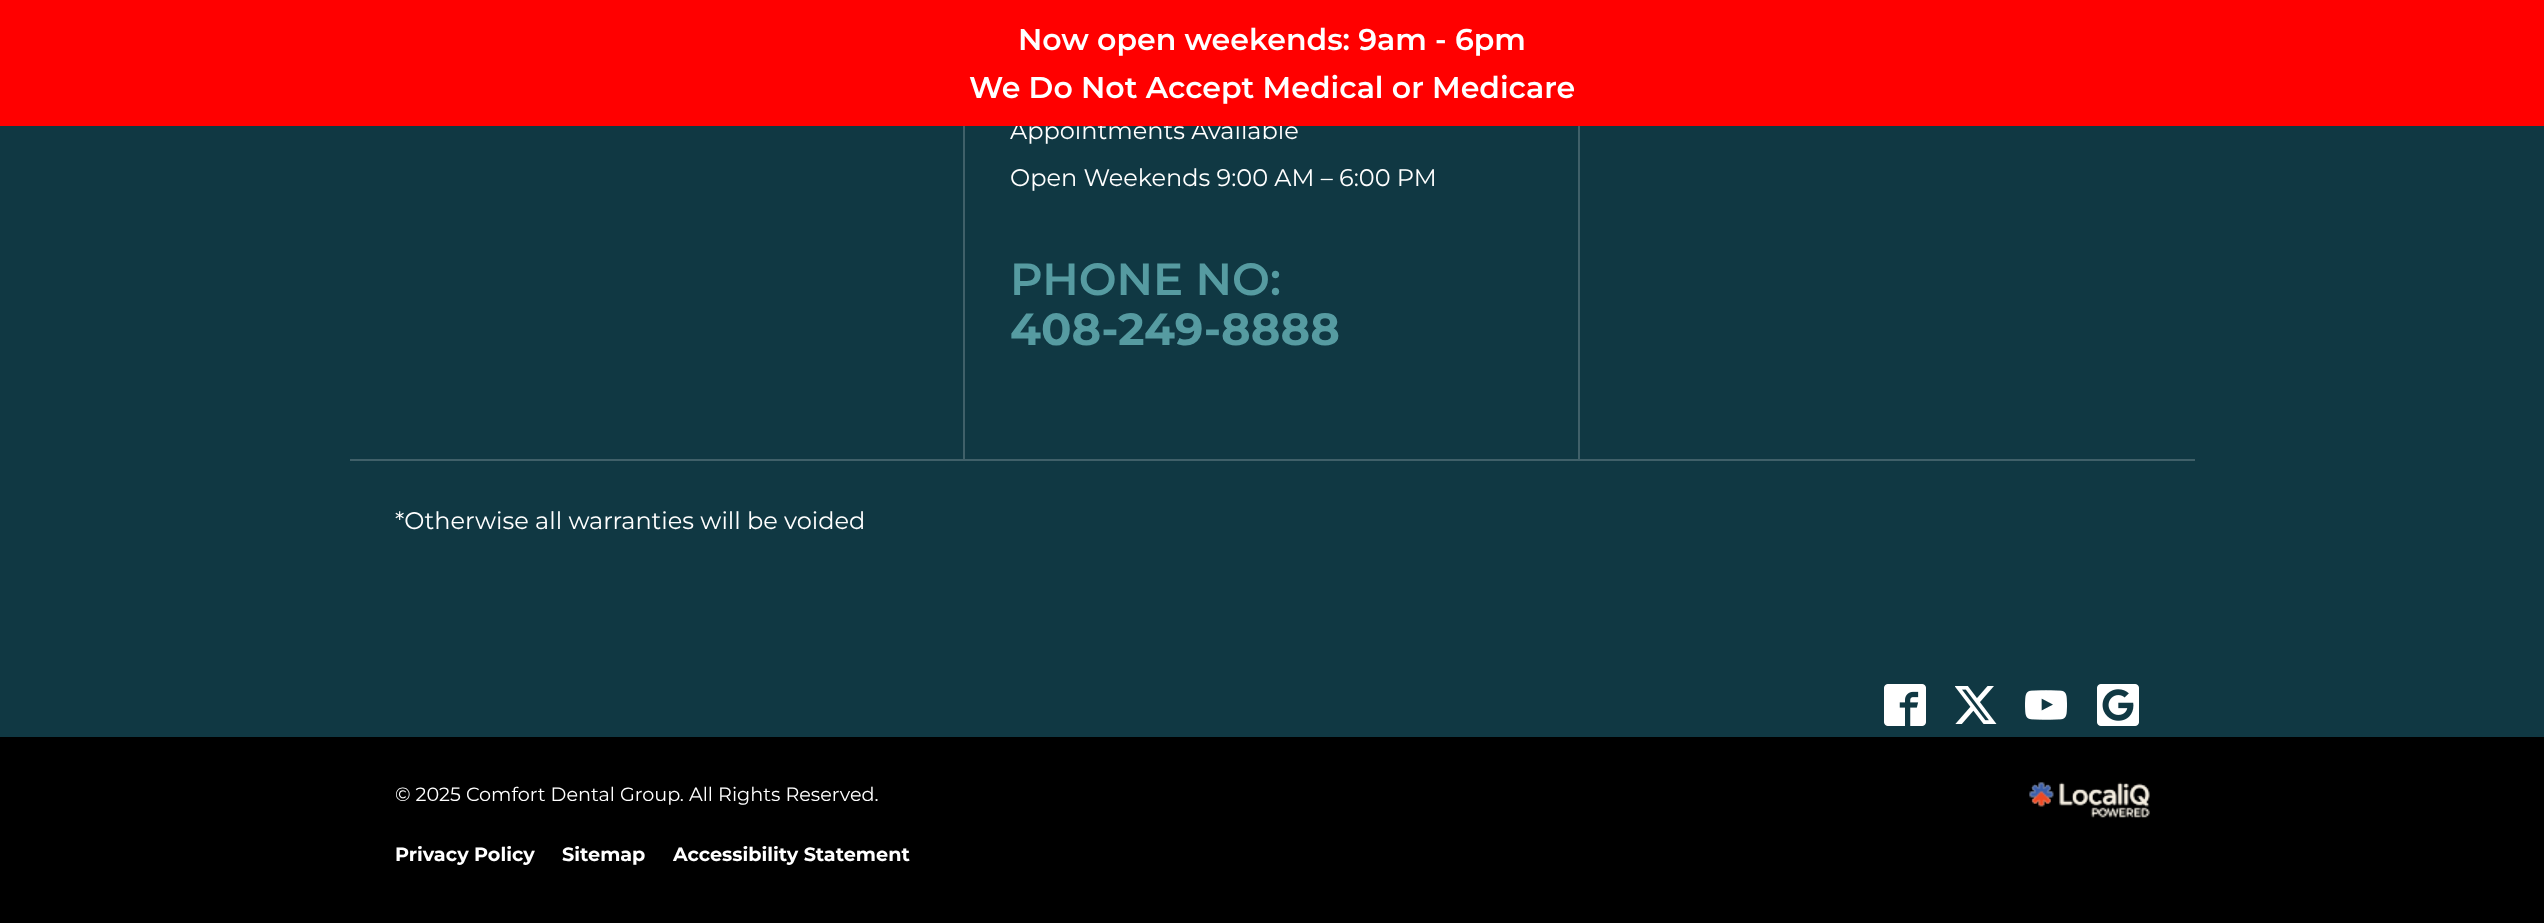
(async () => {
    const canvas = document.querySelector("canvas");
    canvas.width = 2544;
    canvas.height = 923;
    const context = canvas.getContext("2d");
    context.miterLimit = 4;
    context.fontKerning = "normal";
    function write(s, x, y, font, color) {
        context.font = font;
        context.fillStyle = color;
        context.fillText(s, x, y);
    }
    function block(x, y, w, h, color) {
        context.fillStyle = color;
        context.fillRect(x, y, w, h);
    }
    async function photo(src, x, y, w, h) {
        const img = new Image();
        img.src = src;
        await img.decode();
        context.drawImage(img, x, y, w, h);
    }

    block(0, 0, 2544, 923, "rgb(16, 56, 67)");
    write("Appointments Available", 1010, 139, "24px Montserrat", "rgb(255, 255, 255)");
    block(0, 0, 2544, 126, "rgb(255, 0, 0)");
    write("Now open weekends: 9am - 6pm", 1018, 50, "600 30px Montserrat", "rgb(255, 255, 255)");
    write("We Do Not Accept Medical or Medicare", 969, 98, "600 30px Montserrat", "rgb(255, 255, 255)");
    block(963, 126, 2, 333, "rgb(64, 96, 105)");
    block(1578, 126, 2, 333, "rgb(64, 96, 105)");
    write("Open Weekends 9:00 AM – 6:00 PM", 1010, 186, "24px Montserrat", "rgb(255, 255, 255)");
    write("PHONE NO:", 1010, 295, "600 45px Montserrat", "rgb(86, 155, 161)");
    write("408-249-8888", 1010, 345, "bold 45px Montserrat", "rgb(86, 155, 161)");
    block(350, 459, 1845, 2, "rgb(64, 96, 105)");
    write("*Otherwise all warranties will be voided", 395, 529, "24px Montserrat", "rgb(255, 255, 255)");
    await photo("media/1.png", 1884, 684, 42, 42);
    await photo("media/2.png", 1955, 686, 42, 38);
    await photo("media/3.png", 2025, 690, 42, 30);
    await photo("media/4.png", 2097, 684, 42, 42);
    block(0, 737, 2544, 186, "rgb(0, 0, 0)");
    write("© 2025 Comfort Dental Group. All Rights Reserved.", 395, 801, "19.2px Montserrat", "rgb(255, 255, 255)");
    write("Privacy Policy", 395, 861, "bold 19.2px Montserrat", "rgb(255, 255, 255)");
    write("Sitemap", 562, 861, "bold 19.2px Montserrat", "rgb(255, 255, 255)");
    write("Accessibility Statement", 673, 861, "bold 19.2px Montserrat", "rgb(255, 255, 255)");
    await photo("media/5.png", 2029, 782, 121, 36);
})();
